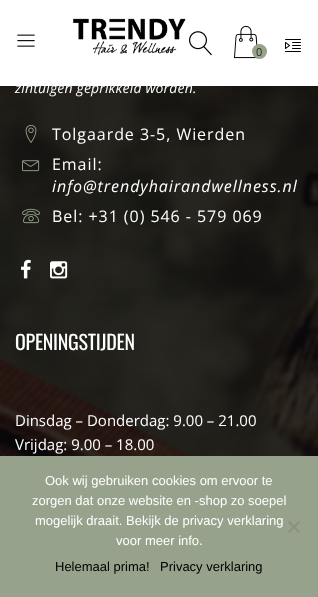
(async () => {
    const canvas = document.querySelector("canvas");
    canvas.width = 318;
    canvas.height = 597;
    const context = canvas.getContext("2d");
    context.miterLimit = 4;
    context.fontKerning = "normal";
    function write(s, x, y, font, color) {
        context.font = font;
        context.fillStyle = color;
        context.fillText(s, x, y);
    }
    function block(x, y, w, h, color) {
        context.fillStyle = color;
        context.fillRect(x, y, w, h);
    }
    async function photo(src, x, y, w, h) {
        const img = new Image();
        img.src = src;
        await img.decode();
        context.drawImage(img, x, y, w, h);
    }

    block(0, 0, 318, 597, "rgb(255, 255, 255)");
    await photo("media/1.png", 73, 18, 113, 37);
    await photo("media/2.png", 17, 34, 18, 13);
    await photo("media/3.png", 189, 31, 23, 25);
    await photo("media/4.png", 234, 25, 24, 34);
    context.fillStyle = "rgb(150, 162, 139)";
    context.beginPath();
    context.arc(259.5, 51.5, 7.5, 0, Math.PI * 2);
    context.fill();
    write("0", 256, 56, "11px Open Sans", "rgb(35, 31, 32)");
    await photo("media/5.png", 285, 39, 16, 13);
    await photo("media/6.png", 0, 86, 318, 370);
    context.letterSpacing = "0.15px";
    write("zintuigen geprikkeld worden.", 15, 93, "italic 14px Open Sans", "rgb(255, 255, 255)");
    await photo("media/7.png", 25, 124, 12, 19);
    context.letterSpacing = "0.95px";
    write("Tolgaarde 3-5, Wierden", 52, 140, "16px Open Sans", "rgb(255, 255, 255)");
    await photo("media/8.png", 22, 160, 18, 12);
    write("Email:", 52, 170, "16px Open Sans", "rgb(255, 255, 255)");
    write("info@trendyhairandwellness.nl", 52, 192, "italic 16px Open Sans", "rgb(255, 255, 255)");
    await photo("media/9.png", 22, 208, 18, 16);
    write("Bel: +31 (0) 546 - 579 069", 52, 222, "16px Open Sans", "rgb(255, 255, 255)");
    await photo("media/10.png", 21, 259, 10, 20);
    await photo("media/11.png", 50, 261, 18, 18);
    context.letterSpacing = "-0.25px";
    write("OPENINGSTIJDEN", 15, 350, "20px Oswald", "rgb(255, 255, 255)");
    context.letterSpacing = "0px";
    write("Dinsdag – Donderdag: 9.00 – 21.00", 15, 426, "15px Open Sans", "rgb(255, 255, 255)");
    write("Vrijdag: 9.00 – 18.00", 15, 450, "15px Open Sans", "rgb(255, 255, 255)");
    block(0, 456, 318, 141, "rgb(150, 162, 139)");
    write("Ook wij gebruiken cookies om ervoor te", 45, 485, "13px Liberation Sans", "rgb(255, 255, 255)");
    write("zorgen dat onze website en -shop zo soepel", 32, 505, "13px Liberation Sans", "rgb(255, 255, 255)");
    write("mogelijk draait. Bekijk de privacy verklaring", 35, 525, "13px Liberation Sans", "rgb(255, 255, 255)");
    write("voor meer info.", 116, 545, "13px Liberation Sans", "rgb(255, 255, 255)");
    context.fillStyle = "rgb(139, 145, 134)";
    context.beginPath();
    context.moveTo(298.5, 521);
    context.lineTo(300, 522.5);
    context.lineTo(289.5, 533);
    context.lineTo(288, 531.5);
    context.closePath();
    context.fill();
    context.beginPath();
    context.moveTo(288, 522.5);
    context.lineTo(289.5, 521);
    context.lineTo(300, 531.5);
    context.lineTo(298.5, 533);
    context.closePath();
    context.fill();
    write("Helemaal prima!", 55, 571, "13px Liberation Sans", "rgb(0, 0, 0)");
    write("Privacy verklaring", 160, 571, "13px Liberation Sans", "rgb(0, 0, 0)");
})();
